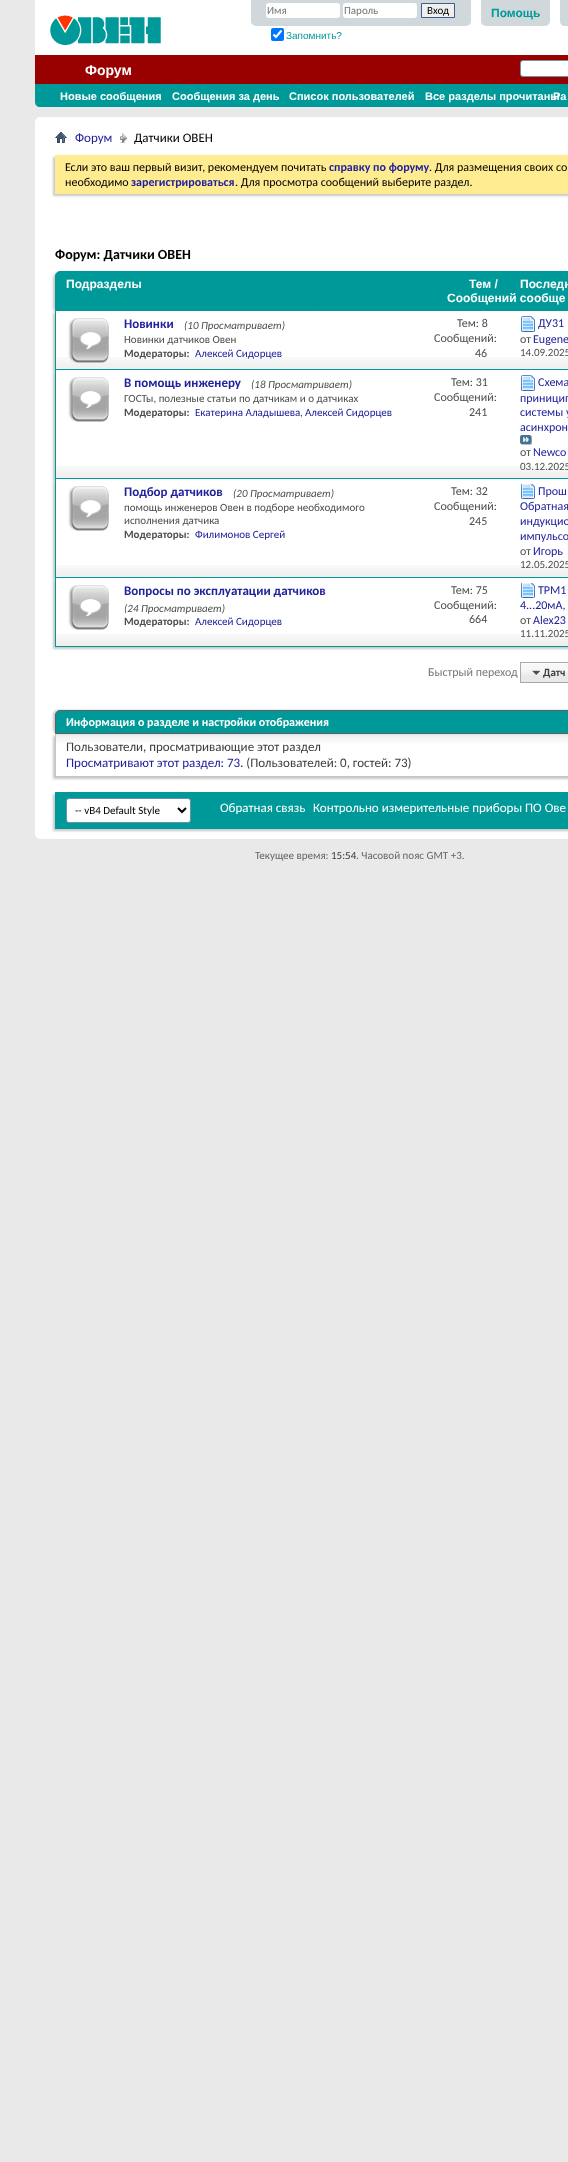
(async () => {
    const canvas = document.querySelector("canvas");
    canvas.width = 568;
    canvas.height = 2162;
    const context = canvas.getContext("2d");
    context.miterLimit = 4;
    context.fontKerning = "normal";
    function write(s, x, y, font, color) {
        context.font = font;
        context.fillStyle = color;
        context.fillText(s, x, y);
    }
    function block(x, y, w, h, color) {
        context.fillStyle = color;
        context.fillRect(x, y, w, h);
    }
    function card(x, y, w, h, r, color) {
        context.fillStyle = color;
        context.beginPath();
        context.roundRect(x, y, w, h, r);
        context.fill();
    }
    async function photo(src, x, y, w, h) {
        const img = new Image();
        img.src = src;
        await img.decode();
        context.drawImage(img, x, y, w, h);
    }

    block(0, 0, 568, 2162, "rgb(233, 233, 233)");
    context.fillStyle = "rgb(255, 255, 255)";
    context.beginPath();
    context.moveTo(35, 0);
    context.lineTo(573, 0);
    context.lineTo(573, 102);
    context.bezierCurveTo(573, 105, 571, 107, 568, 107);
    context.lineTo(40, 107);
    context.bezierCurveTo(37, 107, 35, 105, 35, 102);
    context.closePath();
    context.fill();
    await photo("media/1.png", 50, 15, 111, 30);
    context.fillStyle = "rgb(209, 216, 219)";
    context.beginPath();
    context.roundRect(251, 0, 220, 26, [0, 0, 5, 5]);
    context.fill();
    card(266, 3, 74, 15, 3, "rgb(255, 255, 255)");
    write("Имя", 267, 14, "11px Carlito", "rgb(119, 119, 119)");
    card(343, 3, 74, 15, 3, "rgb(255, 255, 255)");
    write("Пароль", 344, 14, "11px Carlito", "rgb(119, 119, 119)");
    context.fillStyle = "rgb(239, 239, 239)";
    context.beginPath();
    context.rect(421.5, 3.5, 33, 14);
    context.fill();
    context.strokeStyle = "rgb(65, 93, 141)";
    context.stroke();
    write("Вход", 427, 14, "11px Carlito", "rgb(0, 0, 0)");
    card(271, 28, 13, 13, 2, "rgb(0, 117, 255)");
    context.beginPath();
    context.moveTo(273.5, 34.5);
    context.lineTo(276, 37);
    context.lineTo(281.5, 30.5);
    context.strokeStyle = "rgb(255, 255, 255)";
    context.lineWidth = 2.1;
    context.stroke();
    write("Запомнить?", 286, 39, "10px Liberation Sans", "rgb(0, 153, 153)");
    context.fillStyle = "rgb(209, 216, 219)";
    context.beginPath();
    context.roundRect(481, 0, 69, 26, [0, 0, 5, 5]);
    context.fill();
    write("Помощь", 491, 17, "bold 12px Liberation Sans", "rgb(0, 153, 153)");
    context.fillStyle = "rgb(209, 216, 219)";
    context.beginPath();
    context.moveTo(560, 0);
    context.lineTo(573, 0);
    context.lineTo(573, 21);
    context.bezierCurveTo(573, 24, 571, 26, 568, 26);
    context.lineTo(565, 26);
    context.bezierCurveTo(562, 26, 560, 24, 560, 21);
    context.closePath();
    context.fill();
    context.fillStyle = "rgb(0, 153, 153)";
    context.beginPath();
    context.moveTo(35, 55);
    context.lineTo(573, 55);
    context.lineTo(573, 102);
    context.bezierCurveTo(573, 105, 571, 107, 568, 107);
    context.lineTo(40, 107);
    context.bezierCurveTo(37, 107, 35, 105, 35, 102);
    context.closePath();
    context.fill();
    block(35, 55, 533, 29, "rgb(153, 0, 0)");
    write("Форум", 85, 75, "bold 14px Liberation Sans", "rgb(255, 255, 255)");
    write("Новые сообщения", 60, 100, "bold 11px Liberation Sans", "rgb(255, 255, 255)");
    write("Сообщения за день", 172, 100, "bold 11px Liberation Sans", "rgb(255, 255, 255)");
    write("Список пользователей", 289, 100, "bold 11px Liberation Sans", "rgb(255, 255, 255)");
    write("Все разделы прочитаны", 425, 100, "bold 11px Liberation Sans", "rgb(255, 255, 255)");
    context.beginPath();
    context.roundRect(520.5, 60.5, 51, 16, 2.5);
    context.fill();
    context.strokeStyle = "rgb(107, 145, 171)";
    context.lineWidth = 1;
    context.stroke();
    write("Ра", 553, 100, "bold 11px Liberation Sans", "rgb(255, 255, 255)");
    card(35, 117, 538, 722, 5, "rgb(255, 255, 255)");
    await photo("media/2.png", 55, 132, 12, 11);
    await photo("media/3.png", 120, 133, 7, 10);
    write("Форум", 75, 142, "13px Carlito", "rgb(34, 34, 156)");
    write("Датчики ОВЕН", 134, 142, "13px Carlito", "rgb(0, 0, 0)");
    context.fillStyle = "rgb(200, 200, 200)";
    context.filter = "blur(1px)";
    context.beginPath();
    context.rect(53, 157, 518, 39);
    context.fill();
    context.filter = "none";
    block(55, 155, 513, 39, "rgb(255, 235, 144)");
    write("Если это ваш первый визит, рекомендуем почитать", 65, 171, "12px Carlito", "rgb(0, 0, 0)");
    write("справку по форуму", 329, 171, "bold 12px Carlito", "rgb(34, 34, 156)");
    write(". Для размещения своих со", 429, 171, "12px Carlito", "rgb(0, 0, 0)");
    write("необходимо", 65, 186, "12px Carlito", "rgb(0, 0, 0)");
    write("зарегистрироваться", 131, 186, "bold 12px Carlito", "rgb(34, 34, 156)");
    write(". Для просмотра сообщений выберите раздел.", 235, 186, "12px Carlito", "rgb(0, 0, 0)");
    write("Форум: Датчики ОВЕН", 55, 259, "bold 14px Carlito", "rgb(0, 0, 0)");
    context.fillStyle = "rgb(200, 200, 200)";
    context.filter = "blur(1px)";
    context.beginPath();
    context.roundRect(53, 273, 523, 40, 5);
    context.fill();
    context.filter = "none";
    context.fillStyle = "rgb(0, 153, 153)";
    context.beginPath();
    context.moveTo(60, 271.5);
    context.lineTo(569, 271.5);
    context.bezierCurveTo(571.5, 271.5, 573.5, 273.5, 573.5, 276);
    context.lineTo(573.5, 310.5);
    context.lineTo(55.5, 310.5);
    context.lineTo(55.5, 276);
    context.bezierCurveTo(55.5, 273.5, 57.5, 271.5, 60, 271.5);
    context.closePath();
    context.fill();
    context.strokeStyle = "rgb(0, 153, 153)";
    context.stroke();
    write("Подразделы", 66, 288, "bold 12px Liberation Sans", "rgb(255, 255, 255)");
    write("Тем /", 469, 288, "bold 12px Liberation Sans", "rgb(255, 255, 255)");
    write("Сообщений сообще", 447, 302, "bold 12px Liberation Sans", "rgb(255, 255, 255)");
    write("Последн", 520, 288, "bold 12px Liberation Sans", "rgb(255, 255, 255)");
    context.fillStyle = "rgb(200, 200, 200)";
    context.filter = "blur(1px)";
    context.beginPath();
    context.rect(53, 313, 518, 59);
    context.fill();
    context.filter = "none";
    block(56, 311, 512, 58, "rgb(255, 255, 255)");
    await photo("media/4.png", 56, 357, 512, 12);
    block(55, 369, 513, 1, "rgb(0, 153, 153)");
    block(55, 311, 1, 59, "rgb(0, 153, 153)");
    await photo("media/5.png", 68, 318, 41, 45);
    write("Новинки", 124, 328, "bold 13px Carlito", "rgb(34, 34, 156)");
    write("(10 Просматривает)", 184, 329, "italic 11px Carlito", "rgb(78, 78, 78)");
    write("Новинки датчиков Овен", 124, 343, "11px Carlito", "rgb(78, 78, 78)");
    write("Модераторы:", 124, 357, "bold 11px Carlito", "rgb(78, 78, 78)");
    write("Алексей Сидорцев", 195, 357, "11px Carlito", "rgb(34, 34, 156)");
    write("Тем: 8", 457, 327, "12px Carlito", "rgb(78, 78, 78)");
    write("Сообщений:", 434, 342, "12px Carlito", "rgb(78, 78, 78)");
    write("46", 475, 357, "12px Carlito", "rgb(78, 78, 78)");
    await photo("media/6.png", 521, 316, 14, 16);
    write("ДУ31", 538, 327, "12px Carlito", "rgb(34, 34, 156)");
    write("от", 520, 343, "12px Carlito", "rgb(78, 78, 78)");
    write("Eugene", 533, 343, "12px Carlito", "rgb(34, 34, 156)");
    write("14.09.2025", 520, 356, "11px Carlito", "rgb(78, 78, 78)");
    context.fillStyle = "rgb(200, 200, 200)";
    context.filter = "blur(1px)";
    context.beginPath();
    context.rect(53, 372, 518, 109);
    context.fill();
    context.filter = "none";
    block(56, 370, 512, 108, "rgb(255, 255, 255)");
    await photo("media/4.png", 56, 466, 512, 12);
    block(55, 478, 513, 1, "rgb(0, 153, 153)");
    block(55, 370, 1, 109, "rgb(0, 153, 153)");
    await photo("media/7.png", 68, 377, 41, 45);
    write("В помощь инженеру", 124, 387, "bold 13px Carlito", "rgb(34, 34, 156)");
    write("(18 Просматривает)", 251, 388, "italic 11px Carlito", "rgb(78, 78, 78)");
    write("ГОСТы, полезные статьи по датчикам и о датчиках", 124, 402, "11px Carlito", "rgb(78, 78, 78)");
    write("Модераторы:", 124, 416, "bold 11px Carlito", "rgb(78, 78, 78)");
    write("Екатерина Аладышева", 195, 416, "11px Carlito", "rgb(34, 34, 156)");
    write(",", 300, 416, "11px Carlito", "rgb(78, 78, 78)");
    write("Алексей Сидорцев", 305, 416, "11px Carlito", "rgb(34, 34, 156)");
    write("Тем: 31", 451, 386, "12px Carlito", "rgb(78, 78, 78)");
    write("Сообщений:", 434, 401, "12px Carlito", "rgb(78, 78, 78)");
    write("241", 469, 416, "12px Carlito", "rgb(78, 78, 78)");
    await photo("media/6.png", 521, 375, 14, 16);
    write("Схема", 538, 386, "12px Carlito", "rgb(34, 34, 156)");
    write("приницип", 520, 402, "12px Carlito", "rgb(34, 34, 156)");
    write("системы у", 520, 416, "12px Carlito", "rgb(34, 34, 156)");
    write("асинхрон", 520, 431, "12px Carlito", "rgb(34, 34, 156)");
    await photo("media/8.png", 520, 435, 12, 10);
    write("от", 520, 456, "12px Carlito", "rgb(78, 78, 78)");
    write("Newco", 533, 456, "12px Carlito", "rgb(34, 34, 156)");
    write("03.12.2025", 520, 470, "11px Carlito", "rgb(78, 78, 78)");
    context.fillStyle = "rgb(200, 200, 200)";
    context.filter = "blur(1px)";
    context.beginPath();
    context.rect(53, 481, 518, 99);
    context.fill();
    context.filter = "none";
    block(56, 479, 512, 98, "rgb(255, 255, 255)");
    await photo("media/4.png", 56, 565, 512, 12);
    block(55, 577, 513, 1, "rgb(0, 153, 153)");
    block(55, 479, 1, 99, "rgb(0, 153, 153)");
    await photo("media/7.png", 68, 486, 41, 45);
    write("Подбор датчиков", 124, 496, "bold 13px Carlito", "rgb(34, 34, 156)");
    write("(20 Просматривает)", 233, 497, "italic 11px Carlito", "rgb(78, 78, 78)");
    write("помощь инженеров Овен в подборе необходимого", 124, 511, "11px Carlito", "rgb(78, 78, 78)");
    write("исполнения датчика", 124, 524, "11px Carlito", "rgb(78, 78, 78)");
    write("Модераторы:", 124, 538, "bold 11px Carlito", "rgb(78, 78, 78)");
    write("Филимонов Сергей", 195, 538, "11px Carlito", "rgb(34, 34, 156)");
    write("Тем: 32", 451, 495, "12px Carlito", "rgb(78, 78, 78)");
    write("Сообщений:", 434, 510, "12px Carlito", "rgb(78, 78, 78)");
    write("245", 469, 525, "12px Carlito", "rgb(78, 78, 78)");
    await photo("media/9.png", 521, 484, 14, 15);
    write("Прош", 538, 495, "12px Carlito", "rgb(34, 34, 156)");
    write("Обратная", 520, 510, "12px Carlito", "rgb(34, 34, 156)");
    write("индукцио", 520, 525, "12px Carlito", "rgb(34, 34, 156)");
    write("импульсо", 520, 540, "12px Carlito", "rgb(34, 34, 156)");
    write("от", 520, 555, "12px Carlito", "rgb(78, 78, 78)");
    write("Игорь", 533, 555, "12px Carlito", "rgb(34, 34, 156)");
    write("12.05.2025", 520, 568, "11px Carlito", "rgb(78, 78, 78)");
    context.fillStyle = "rgb(200, 200, 200)";
    context.filter = "blur(1px)";
    context.beginPath();
    context.rect(53, 580, 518, 69);
    context.fill();
    context.filter = "none";
    block(56, 578, 512, 68, "rgb(255, 255, 255)");
    await photo("media/4.png", 56, 634, 512, 12);
    block(55, 646, 513, 1, "rgb(0, 153, 153)");
    block(55, 578, 1, 69, "rgb(0, 153, 153)");
    await photo("media/7.png", 68, 585, 41, 45);
    write("Вопросы по эксплуатации датчиков", 124, 595, "bold 13px Carlito", "rgb(34, 34, 156)");
    write("(24 Просматривает)", 124, 612, "italic 11px Carlito", "rgb(78, 78, 78)");
    write("Модераторы:", 124, 625, "bold 11px Carlito", "rgb(78, 78, 78)");
    write("Алексей Сидорцев", 195, 625, "11px Carlito", "rgb(34, 34, 156)");
    write("Тем: 75", 451, 594, "12px Carlito", "rgb(78, 78, 78)");
    write("Сообщений:", 434, 609, "12px Carlito", "rgb(78, 78, 78)");
    write("664", 469, 623, "12px Carlito", "rgb(78, 78, 78)");
    await photo("media/9.png", 521, 583, 14, 15);
    write("ТРМ1", 538, 594, "12px Carlito", "rgb(34, 34, 156)");
    write("4...20мА,", 520, 609, "12px Carlito", "rgb(34, 34, 156)");
    write("от", 520, 624, "12px Carlito", "rgb(78, 78, 78)");
    write("Alex23", 533, 624, "12px Carlito", "rgb(34, 34, 156)");
    write("11.11.2025", 520, 637, "11px Carlito", "rgb(78, 78, 78)");
    write("Быстрый переход", 428, 676, "12px Carlito", "rgb(119, 119, 119)");
    block(521, 663, 47, 19, "rgb(233, 233, 233)");
    await photo("media/10.png", 521, 663, 47, 12);
    context.strokeStyle = "rgb(168, 168, 168)";
    context.strokeRect(520.5, 662.5, 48, 20);
    await photo("media/11.png", 532, 670, 9, 6);
    write("Датч", 543, 676, "bold 11px Carlito", "rgb(62, 62, 62)");
    context.save();
    context.beginPath();
    context.moveTo(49, 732);
    context.lineTo(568, 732);
    context.lineTo(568, 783);
    context.lineTo(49, 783);
    context.closePath();
    context.moveTo(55, 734);
    context.lineTo(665, 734);
    context.lineTo(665, 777);
    context.lineTo(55, 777);
    context.closePath();
    context.clip("evenodd");
    context.fillStyle = "rgb(200, 200, 200)";
    context.filter = "blur(1px)";
    context.beginPath();
    context.rect(53, 736, 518, 43);
    context.fill();
    context.filter = "none";
    context.restore();
    await photo("media/12.png", 56, 734, 512, 9);
    block(55, 776, 513, 1, "rgb(196, 196, 196)");
    block(55, 734, 1, 43, "rgb(196, 196, 196)");
    context.fillStyle = "rgb(200, 200, 200)";
    context.filter = "blur(1px)";
    context.beginPath();
    context.roundRect(53, 710, 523, 24, 5);
    context.fill();
    context.filter = "none";
    context.fillStyle = "rgb(0, 153, 153)";
    context.beginPath();
    context.moveTo(60, 710.5);
    context.lineTo(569, 710.5);
    context.bezierCurveTo(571.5, 710.5, 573.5, 712.5, 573.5, 715);
    context.lineTo(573.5, 733.5);
    context.lineTo(55.5, 733.5);
    context.lineTo(55.5, 715);
    context.bezierCurveTo(55.5, 712.5, 57.5, 710.5, 60, 710.5);
    context.closePath();
    context.fill();
    context.strokeStyle = "rgb(96, 96, 96)";
    context.stroke();
    write("Информация о разделе и настройки отображения", 66, 726, "bold 12px Carlito", "rgb(255, 255, 255)");
    write("Пользователи, просматривающие этот раздел", 66, 751, "13px Carlito", "rgb(62, 62, 62)");
    write("Просматривают этот раздел: 73", 66, 767, "13px Carlito", "rgb(34, 34, 156)");
    write(". (Пользователей: 0, гостей: 73)", 240, 767, "13px Carlito", "rgb(62, 62, 62)");
    context.fillStyle = "rgb(200, 200, 200)";
    context.filter = "blur(1px)";
    context.beginPath();
    context.rect(53, 794, 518, 37);
    context.fill();
    context.filter = "none";
    block(55, 792, 513, 37, "rgb(0, 153, 153)");
    context.fillStyle = "rgb(255, 255, 255)";
    context.beginPath();
    context.roundRect(66.5, 798.5, 124, 24, 2.5);
    context.fill();
    context.strokeStyle = "rgb(107, 145, 171)";
    context.stroke();
    context.beginPath();
    context.moveTo(178, 808);
    context.lineTo(182, 812);
    context.lineTo(186, 808);
    context.strokeStyle = "rgb(0, 0, 0)";
    context.lineWidth = 2;
    context.stroke();
    write("-- vB4 Default Style", 75, 814, "11px Carlito", "rgb(0, 0, 0)");
    write("Обратная связь", 220, 812, "13px Carlito", "rgb(255, 255, 255)");
    write("Контрольно измерительные приборы ПО Ове", 313, 812, "13px Carlito", "rgb(255, 255, 255)");
    write("Текущее время:", 255, 859, "11px Carlito", "rgb(102, 102, 102)");
    write("15:54", 331, 859, "11px Carlito", "rgb(62, 62, 62)");
    write(". Часовой пояс GMT +3.", 356, 859, "11px Carlito", "rgb(102, 102, 102)");
})();
